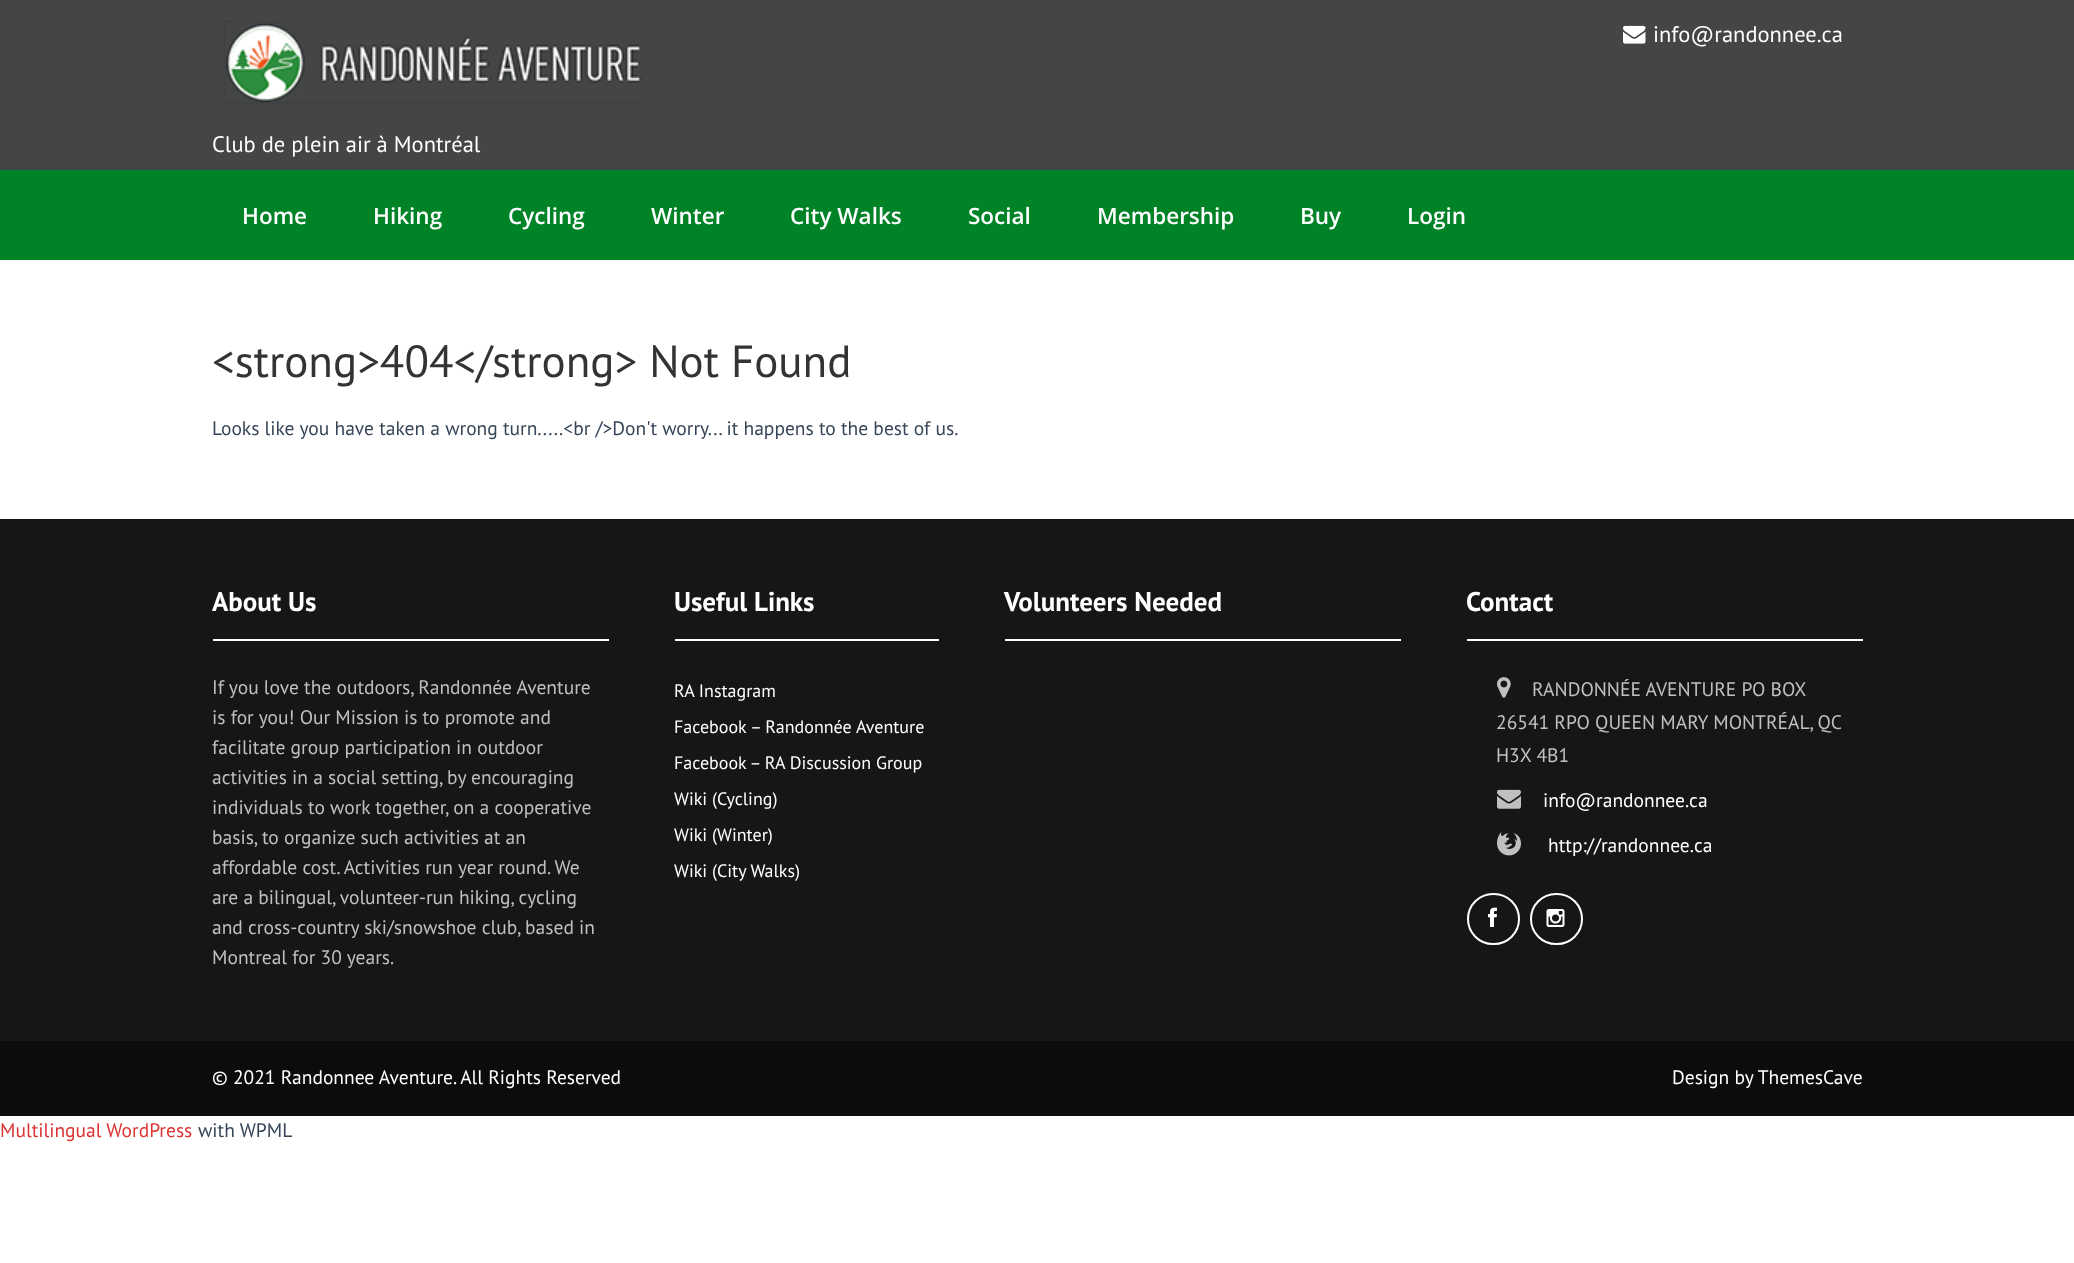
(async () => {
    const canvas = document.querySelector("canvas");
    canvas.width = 2074;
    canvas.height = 1263;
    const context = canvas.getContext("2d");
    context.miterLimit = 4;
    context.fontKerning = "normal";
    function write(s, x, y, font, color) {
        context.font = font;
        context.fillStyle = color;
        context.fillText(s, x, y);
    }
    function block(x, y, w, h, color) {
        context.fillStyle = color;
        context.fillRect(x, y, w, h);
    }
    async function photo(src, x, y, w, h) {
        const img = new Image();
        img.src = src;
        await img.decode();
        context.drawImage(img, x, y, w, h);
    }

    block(0, 0, 2074, 1263, "rgb(255, 255, 255)");
    block(0, 0, 2074, 170, "rgb(67, 69, 70)");
    await photo("media/1.png", 1623, 25, 23, 19);
    write("info@randonnee.ca", 1653, 42, "22.5px PT Sans", "rgb(255, 255, 255)");
    await photo("media/2.png", 223, 21, 419, 83);
    write("Club de plein air à Montréal", 212, 152, "22.5px PT Sans", "rgb(255, 255, 255)");
    block(0, 170, 2074, 90, "rgb(0, 130, 39)");
    write("Home", 242, 224, "600 22.5px Open Sans", "rgb(255, 255, 255)");
    write("Hiking", 373, 224, "600 22.5px Open Sans", "rgb(255, 255, 255)");
    write("Cycling", 508, 224, "600 22.5px Open Sans", "rgb(255, 255, 255)");
    write("Winter", 651, 224, "600 22.5px Open Sans", "rgb(255, 255, 255)");
    write("City Walks", 790, 224, "600 22.5px Open Sans", "rgb(255, 255, 255)");
    write("Social", 968, 224, "600 22.5px Open Sans", "rgb(255, 255, 255)");
    write("Membership", 1097, 224, "600 22.5px Open Sans", "rgb(255, 255, 255)");
    write("Buy", 1300, 224, "600 22.5px Open Sans", "rgb(255, 255, 255)");
    write("Login", 1407, 224, "600 22.5px Open Sans", "rgb(255, 255, 255)");
    write("<strong>404<\/strong> Not Found", 212, 377, "45px PT Sans", "rgb(51, 51, 51)");
    write("Looks like you have taken a wrong turn.....<br />Don't worry... it happens to the best of us.", 212, 435, "19.5px PT Sans", "rgb(54, 69, 88)");
    block(0, 519, 2074, 522, "rgb(20, 22, 24)");
    block(213, 639, 396, 2, "rgb(255, 255, 255)");
    write("About Us", 212, 611, "bold 27px PT Sans", "rgb(255, 255, 255)");
    write("If you love the outdoors, Randonnée Aventure", 212, 694, "19.5px PT Sans", "rgb(193, 192, 192)");
    write("is for you! Our Mission is to promote and", 212, 724, "19.5px PT Sans", "rgb(193, 192, 192)");
    write("facilitate group participation in outdoor", 212, 754, "19.5px PT Sans", "rgb(193, 192, 192)");
    write("activities in a social setting, by encouraging", 212, 784, "19.5px PT Sans", "rgb(193, 192, 192)");
    write("individuals to work together, on a cooperative", 212, 814, "19.5px PT Sans", "rgb(193, 192, 192)");
    write("basis, to organize such activities at an", 212, 844, "19.5px PT Sans", "rgb(193, 192, 192)");
    write("affordable cost. Activities run year round. We", 212, 874, "19.5px PT Sans", "rgb(193, 192, 192)");
    write("are a bilingual, volunteer-run hiking, cycling", 212, 904, "19.5px PT Sans", "rgb(193, 192, 192)");
    write("and cross-country ski/snowshoe club, based in", 212, 934, "19.5px PT Sans", "rgb(193, 192, 192)");
    write("Montreal for 30 years.", 212, 964, "19.5px PT Sans", "rgb(193, 192, 192)");
    block(675, 639, 264, 2, "rgb(255, 255, 255)");
    write("Useful Links", 674, 611, "bold 27px PT Sans", "rgb(255, 255, 255)");
    write("RA Instagram", 674, 697, "18px PT Sans", "rgb(255, 255, 255)");
    write("Facebook", 674, 733, "18px PT Sans", "rgb(255, 255, 255)");
    write("– Randonnée Aventure", 750, 733, "18px PT Sans", "rgb(255, 255, 255)");
    write("Facebook – RA Discussion Group", 674, 769, "18px PT Sans", "rgb(255, 255, 255)");
    write("Wiki (Cycling)", 674, 805, "18px PT Sans", "rgb(255, 255, 255)");
    write("Wiki (Winter)", 674, 841, "18px PT Sans", "rgb(255, 255, 255)");
    write("Wiki (City Walks)", 674, 877, "18px PT Sans", "rgb(255, 255, 255)");
    block(1005, 639, 396, 2, "rgb(255, 255, 255)");
    write("Volunteers Needed", 1004, 611, "bold 27px PT Sans", "rgb(255, 255, 255)");
    block(1467, 639, 396, 2, "rgb(255, 255, 255)");
    write("Contact", 1466, 611, "bold 27px PT Sans", "rgb(255, 255, 255)");
    await photo("media/3.png", 1497, 677, 14, 21);
    write("RANDONNÉE AVENTURE PO BOX", 1532, 696, "19.5px PT Sans", "rgb(193, 192, 192)");
    write("26541 RPO QUEEN MARY MONTRÉAL, QC", 1496, 729, "19.5px PT Sans", "rgb(193, 192, 192)");
    write("H3X 4B1", 1496, 762, "19.5px PT Sans", "rgb(193, 192, 192)");
    await photo("media/4.png", 1497, 789, 24, 20);
    write("info@randonnee.ca", 1543, 807, "19.5px PT Sans", "rgb(255, 255, 255)");
    await photo("media/5.png", 1497, 832, 24, 24);
    write("http://randonnee.ca", 1548, 852, "19.5px PT Sans", "rgb(255, 255, 255)");
    context.beginPath();
    context.roundRect(1468, 894, 51, 50, 25);
    context.strokeStyle = "rgb(255, 255, 255)";
    context.lineWidth = 2;
    context.stroke();
    await photo("media/6.png", 1488, 907, 9, 20);
    context.beginPath();
    context.roundRect(1531, 894, 51, 50, 25);
    context.stroke();
    await photo("media/7.png", 1546, 909, 19, 18);
    block(0, 1041, 2074, 75, "rgb(10, 12, 13)");
    write("© 2021 Randonnee Aventure. All Rights Reserved", 212, 1084, "19.5px PT Sans", "rgb(255, 255, 255)");
    write("Design by ThemesCave", 1672, 1084, "19.5px PT Sans", "rgb(255, 255, 255)");
    write("Multilingual WordPress", 0, 1137, "19.5px PT Sans", "rgb(221, 51, 51)");
    write("with WPML", 198, 1137, "19.5px PT Sans", "rgb(54, 69, 88)");
})();
